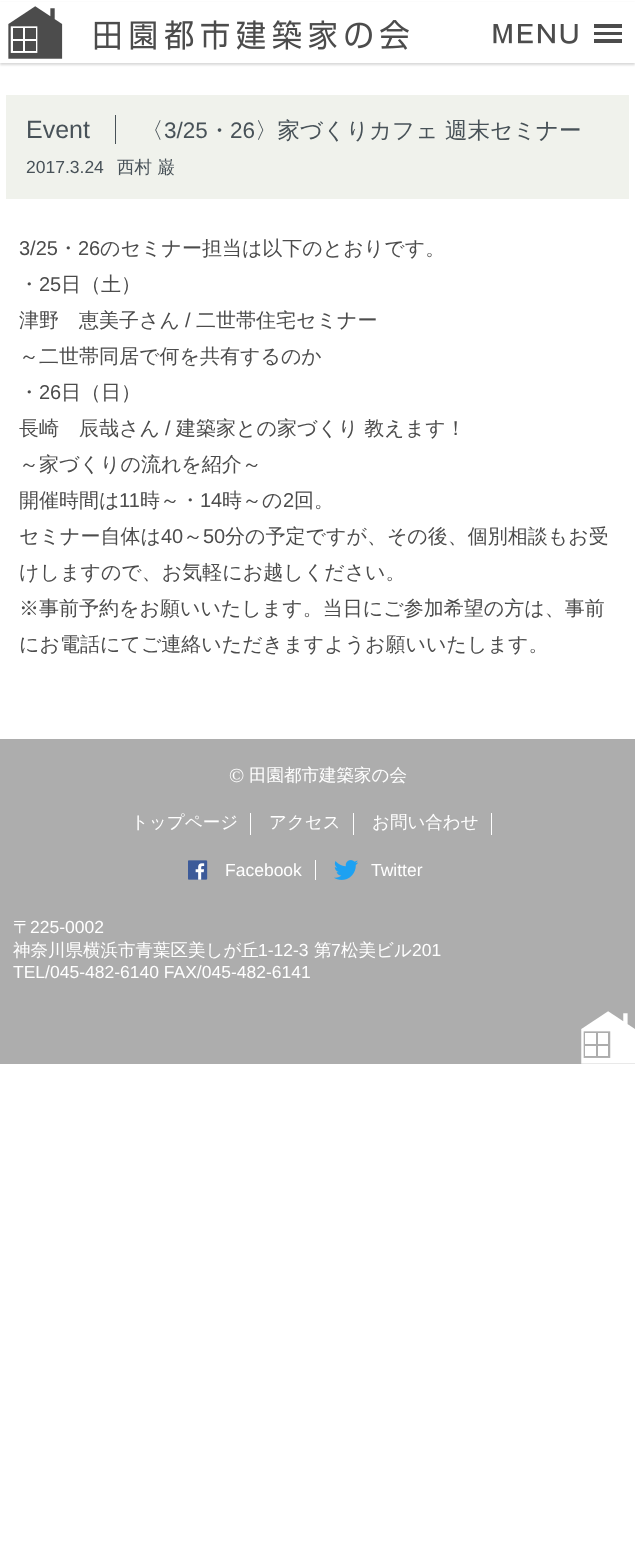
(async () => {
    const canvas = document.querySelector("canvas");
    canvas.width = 635;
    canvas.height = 1568;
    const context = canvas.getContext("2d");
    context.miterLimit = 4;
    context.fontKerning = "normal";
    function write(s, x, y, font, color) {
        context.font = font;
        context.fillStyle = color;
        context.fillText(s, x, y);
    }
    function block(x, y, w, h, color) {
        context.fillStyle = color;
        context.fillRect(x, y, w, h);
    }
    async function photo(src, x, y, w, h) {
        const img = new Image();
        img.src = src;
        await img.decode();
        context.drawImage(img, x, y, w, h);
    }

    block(0, 0, 635, 1568, "rgb(255, 255, 255)");
    context.fillStyle = "rgba(0, 0, 0, 0.15)";
    context.filter = "blur(1px)";
    context.beginPath();
    context.rect(0, 3, 635, 62);
    context.fill();
    context.filter = "none";
    block(0, 2, 635, 61, "rgb(255, 255, 255)");
    await photo("media/1.png", 8, 6, 401, 53);
    await photo("media/2.png", 493, 24, 129, 20);
    block(6, 95, 623, 104, "rgb(240, 242, 236)");
    block(115, 115, 1, 29, "rgb(72, 82, 88)");
    write("Event", 26, 138, "25px Liberation Sans", "rgb(72, 82, 88)");
    write("〈", 141, 138, "500 22.5px WenQuanYi Zen Hei", "rgb(72, 82, 88)");
    write("3/25", 164, 138, "22.5px Liberation Sans", "rgb(72, 82, 88)");
    write("・", 208, 138, "500 22.5px WenQuanYi Zen Hei", "rgb(72, 82, 88)");
    write("26", 230, 138, "22.5px Liberation Sans", "rgb(72, 82, 88)");
    write("〉家づくりカフェ 週末セミナー", 255, 138, "500 22.5px WenQuanYi Zen Hei", "rgb(72, 82, 88)");
    write("2017.3.24", 26, 173, "17.5px Liberation Sans", "rgb(72, 82, 88)");
    write("西村 巌", 117, 173, "500 17.5px WenQuanYi Zen Hei", "rgb(72, 82, 88)");
    write("3/25", 19, 255, "20px Liberation Sans", "rgb(76, 76, 76)");
    write("・", 58, 255, "500 20px WenQuanYi Zen Hei", "rgb(76, 76, 76)");
    write("26", 78, 255, "20px Liberation Sans", "rgb(76, 76, 76)");
    write("のセミナー担当は以下のとおりです。", 100, 255, "500 20px WenQuanYi Zen Hei", "rgb(76, 76, 76)");
    write("・", 19, 291, "500 20px WenQuanYi Zen Hei", "rgb(76, 76, 76)");
    write("25", 39, 291, "20px Liberation Sans", "rgb(76, 76, 76)");
    write("日（土）", 61, 291, "500 20px WenQuanYi Zen Hei", "rgb(76, 76, 76)");
    write("津野　恵美子さん", 19, 327, "500 20px WenQuanYi Zen Hei", "rgb(76, 76, 76)");
    write("/", 185, 327, "20px Liberation Sans", "rgb(76, 76, 76)");
    write("二世帯住宅セミナー", 196, 327, "500 20px WenQuanYi Zen Hei", "rgb(76, 76, 76)");
    write("～二世帯同居で何を共有するのか", 19, 363, "500 20px WenQuanYi Zen Hei", "rgb(76, 76, 76)");
    write("・", 19, 399, "500 20px WenQuanYi Zen Hei", "rgb(76, 76, 76)");
    write("26", 39, 399, "20px Liberation Sans", "rgb(76, 76, 76)");
    write("日（日）", 61, 399, "500 20px WenQuanYi Zen Hei", "rgb(76, 76, 76)");
    write("長崎　辰哉さん", 19, 435, "500 20px WenQuanYi Zen Hei", "rgb(76, 76, 76)");
    write("/", 165, 435, "20px Liberation Sans", "rgb(76, 76, 76)");
    write("建築家との家づくり 教えます！", 176, 435, "500 20px WenQuanYi Zen Hei", "rgb(76, 76, 76)");
    write("～家づくりの流れを紹介～", 19, 471, "500 20px WenQuanYi Zen Hei", "rgb(76, 76, 76)");
    write("開催時間は", 19, 507, "500 20px WenQuanYi Zen Hei", "rgb(76, 76, 76)");
    write("11", 119, 507, "20px Liberation Sans", "rgb(76, 76, 76)");
    write("時～・", 140, 507, "500 20px WenQuanYi Zen Hei", "rgb(76, 76, 76)");
    write("14", 200, 507, "20px Liberation Sans", "rgb(76, 76, 76)");
    write("時～の", 222, 507, "500 20px WenQuanYi Zen Hei", "rgb(76, 76, 76)");
    write("2", 283, 507, "20px Liberation Sans", "rgb(76, 76, 76)");
    write("回。", 294, 507, "500 20px WenQuanYi Zen Hei", "rgb(76, 76, 76)");
    write("セミナー自体は", 19, 543, "500 20px WenQuanYi Zen Hei", "rgb(76, 76, 76)");
    write("40", 161, 543, "20px Liberation Sans", "rgb(76, 76, 76)");
    write("～", 183, 543, "500 20px WenQuanYi Zen Hei", "rgb(76, 76, 76)");
    write("50", 203, 543, "20px Liberation Sans", "rgb(76, 76, 76)");
    write("分の予定ですが、その後、個別相談もお受", 225, 543, "500 20px WenQuanYi Zen Hei", "rgb(76, 76, 76)");
    write("けしますので、お気軽にお越しください。", 19, 579, "500 20px WenQuanYi Zen Hei", "rgb(76, 76, 76)");
    write("※事前予約をお願いいたします。当日にご参加希望の方は、事前", 19, 615, "500 20px WenQuanYi Zen Hei", "rgb(76, 76, 76)");
    write("にお電話にてご連絡いただきますようお願いいたします。", 19, 651, "500 20px WenQuanYi Zen Hei", "rgb(76, 76, 76)");
    block(0, 739, 635, 325, "rgb(173, 173, 173)");
    write("©", 229, 782, "20px Liberation Serif", "rgb(255, 255, 255)");
    write("田園都市建築家の会", 249, 781, "500 17.5px WenQuanYi Zen Hei", "rgb(255, 255, 255)");
    block(250, 813, 1, 22, "rgb(255, 255, 255)");
    write("トップページ", 131, 828, "500 17.5px WenQuanYi Zen Hei", "rgb(255, 255, 255)");
    block(353, 813, 1, 22, "rgb(255, 255, 255)");
    write("アクセス", 269, 828, "500 17.5px WenQuanYi Zen Hei", "rgb(255, 255, 255)");
    block(491, 813, 1, 22, "rgb(255, 255, 255)");
    write("お問い合わせ", 372, 828, "500 17.5px WenQuanYi Zen Hei", "rgb(255, 255, 255)");
    block(315, 860, 1, 20, "rgb(255, 255, 255)");
    await photo("media/3.png", 188, 860, 20, 20);
    write("Facebook", 225, 876, "17.5px Liberation Sans", "rgb(255, 255, 255)");
    await photo("media/4.png", 334, 860, 24, 20);
    write("Twitter", 371, 876, "17.5px Liberation Sans", "rgb(255, 255, 255)");
    await photo("media/5.png", 581, 1011, 54, 53);
    write("〒", 13, 933, "500 17.5px WenQuanYi Zen Hei", "rgb(255, 255, 255)");
    write("225-0002", 30, 933, "17.5px Liberation Sans", "rgb(255, 255, 255)");
    write("神奈川県横浜市青葉区美しが丘", 13, 956, "500 17.5px WenQuanYi Zen Hei", "rgb(255, 255, 255)");
    write("1-12-3", 258, 956, "17.5px Liberation Sans", "rgb(255, 255, 255)");
    write("第", 314, 956, "500 17.5px WenQuanYi Zen Hei", "rgb(255, 255, 255)");
    write("7", 331, 956, "17.5px Liberation Sans", "rgb(255, 255, 255)");
    write("松美ビル", 341, 956, "500 17.5px WenQuanYi Zen Hei", "rgb(255, 255, 255)");
    write("201", 412, 956, "17.5px Liberation Sans", "rgb(255, 255, 255)");
    write("TEL/045-482-6140 FAX/045-482-6141", 13, 978, "17.5px Liberation Sans", "rgb(255, 255, 255)");
})();
